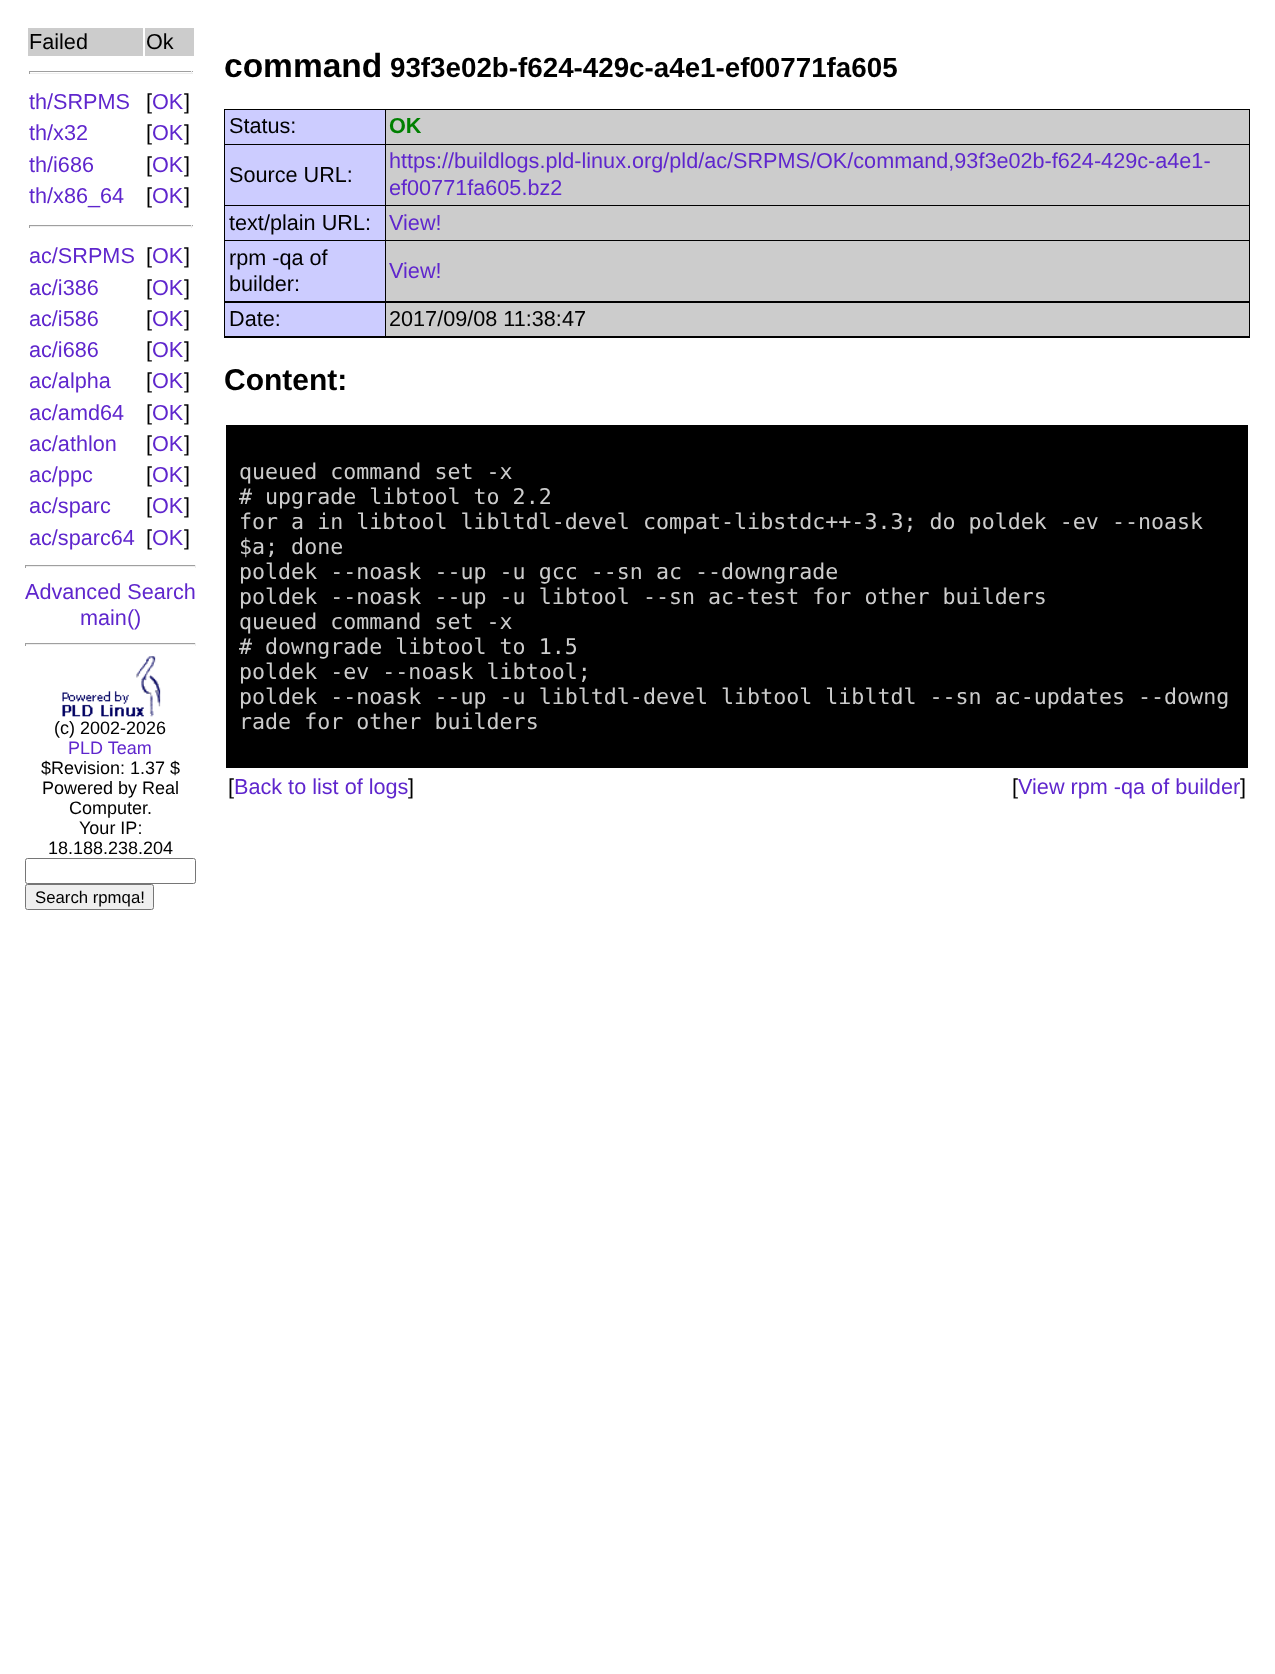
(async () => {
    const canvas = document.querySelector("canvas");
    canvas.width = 1275;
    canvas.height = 1674;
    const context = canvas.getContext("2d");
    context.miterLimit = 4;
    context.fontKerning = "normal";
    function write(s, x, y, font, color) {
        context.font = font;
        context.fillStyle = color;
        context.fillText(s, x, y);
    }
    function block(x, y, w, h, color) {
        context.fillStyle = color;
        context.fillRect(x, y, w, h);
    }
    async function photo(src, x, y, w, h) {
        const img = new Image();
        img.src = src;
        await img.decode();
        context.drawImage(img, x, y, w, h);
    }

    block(0, 0, 1275, 1674, "rgb(255, 255, 255)");
    block(28, 28, 115, 28, "rgb(204, 204, 204)");
    write("Failed", 29, 49, "21.65px Liberation Sans", "rgb(0, 0, 0)");
    block(145, 28, 49, 28, "rgb(204, 204, 204)");
    write("Ok", 146, 49, "21.65px Liberation Sans", "rgb(0, 0, 0)");
    block(29, 71, 164, 1, "rgb(159, 159, 159)");
    block(191, 71, 1, 3, "rgb(238, 238, 238)");
    block(29, 73, 164, 1, "rgb(238, 238, 238)");
    block(29, 71, 1, 3, "rgb(159, 159, 159)");
    write("th/SRPMS", 29, 109, "21.65px Liberation Sans", "rgb(95, 38, 205)");
    write("[", 146, 109, "21.65px Liberation Sans", "rgb(0, 0, 0)");
    write("OK", 152, 109, "21.65px Liberation Sans", "rgb(95, 38, 205)");
    write("]", 184, 109, "21.65px Liberation Sans", "rgb(0, 0, 0)");
    write("th/x32", 29, 140, "21.65px Liberation Sans", "rgb(95, 38, 205)");
    write("[", 146, 140, "21.65px Liberation Sans", "rgb(0, 0, 0)");
    write("OK", 152, 140, "21.65px Liberation Sans", "rgb(95, 38, 205)");
    write("]", 184, 140, "21.65px Liberation Sans", "rgb(0, 0, 0)");
    write("th/i686", 29, 172, "21.65px Liberation Sans", "rgb(95, 38, 205)");
    write("[", 146, 172, "21.65px Liberation Sans", "rgb(0, 0, 0)");
    write("OK", 152, 172, "21.65px Liberation Sans", "rgb(95, 38, 205)");
    write("]", 184, 172, "21.65px Liberation Sans", "rgb(0, 0, 0)");
    write("th/x86_64", 29, 203, "21.65px Liberation Sans", "rgb(95, 38, 205)");
    write("[", 146, 203, "21.65px Liberation Sans", "rgb(0, 0, 0)");
    write("OK", 152, 203, "21.65px Liberation Sans", "rgb(95, 38, 205)");
    write("]", 184, 203, "21.65px Liberation Sans", "rgb(0, 0, 0)");
    block(29, 225, 164, 1, "rgb(159, 159, 159)");
    block(191, 225, 1, 3, "rgb(238, 238, 238)");
    block(29, 226, 164, 1, "rgb(238, 238, 238)");
    block(29, 225, 1, 3, "rgb(159, 159, 159)");
    write("ac/SRPMS", 29, 263, "21.65px Liberation Sans", "rgb(95, 38, 205)");
    write("[", 146, 263, "21.65px Liberation Sans", "rgb(0, 0, 0)");
    write("OK", 152, 263, "21.65px Liberation Sans", "rgb(95, 38, 205)");
    write("]", 184, 263, "21.65px Liberation Sans", "rgb(0, 0, 0)");
    write("ac/i386", 29, 295, "21.65px Liberation Sans", "rgb(95, 38, 205)");
    write("[", 146, 295, "21.65px Liberation Sans", "rgb(0, 0, 0)");
    write("OK", 152, 295, "21.65px Liberation Sans", "rgb(95, 38, 205)");
    write("]", 184, 295, "21.65px Liberation Sans", "rgb(0, 0, 0)");
    write("ac/i586", 29, 326, "21.65px Liberation Sans", "rgb(95, 38, 205)");
    write("[", 146, 326, "21.65px Liberation Sans", "rgb(0, 0, 0)");
    write("OK", 152, 326, "21.65px Liberation Sans", "rgb(95, 38, 205)");
    write("]", 184, 326, "21.65px Liberation Sans", "rgb(0, 0, 0)");
    write("ac/i686", 29, 357, "21.65px Liberation Sans", "rgb(95, 38, 205)");
    write("[", 146, 357, "21.65px Liberation Sans", "rgb(0, 0, 0)");
    write("OK", 152, 357, "21.65px Liberation Sans", "rgb(95, 38, 205)");
    write("]", 184, 357, "21.65px Liberation Sans", "rgb(0, 0, 0)");
    write("ac/alpha", 29, 388, "21.65px Liberation Sans", "rgb(95, 38, 205)");
    write("[", 146, 388, "21.65px Liberation Sans", "rgb(0, 0, 0)");
    write("OK", 152, 388, "21.65px Liberation Sans", "rgb(95, 38, 205)");
    write("]", 184, 388, "21.65px Liberation Sans", "rgb(0, 0, 0)");
    write("ac/amd64", 29, 420, "21.65px Liberation Sans", "rgb(95, 38, 205)");
    write("[", 146, 420, "21.65px Liberation Sans", "rgb(0, 0, 0)");
    write("OK", 152, 420, "21.65px Liberation Sans", "rgb(95, 38, 205)");
    write("]", 184, 420, "21.65px Liberation Sans", "rgb(0, 0, 0)");
    write("ac/athlon", 29, 451, "21.65px Liberation Sans", "rgb(95, 38, 205)");
    write("[", 146, 451, "21.65px Liberation Sans", "rgb(0, 0, 0)");
    write("OK", 152, 451, "21.65px Liberation Sans", "rgb(95, 38, 205)");
    write("]", 184, 451, "21.65px Liberation Sans", "rgb(0, 0, 0)");
    write("ac/ppc", 29, 482, "21.65px Liberation Sans", "rgb(95, 38, 205)");
    write("[", 146, 482, "21.65px Liberation Sans", "rgb(0, 0, 0)");
    write("OK", 152, 482, "21.65px Liberation Sans", "rgb(95, 38, 205)");
    write("]", 184, 482, "21.65px Liberation Sans", "rgb(0, 0, 0)");
    write("ac/sparc", 29, 513, "21.65px Liberation Sans", "rgb(95, 38, 205)");
    write("[", 146, 513, "21.65px Liberation Sans", "rgb(0, 0, 0)");
    write("OK", 152, 513, "21.65px Liberation Sans", "rgb(95, 38, 205)");
    write("]", 184, 513, "21.65px Liberation Sans", "rgb(0, 0, 0)");
    write("ac/sparc64", 29, 545, "21.65px Liberation Sans", "rgb(95, 38, 205)");
    write("[", 146, 545, "21.65px Liberation Sans", "rgb(0, 0, 0)");
    write("OK", 152, 545, "21.65px Liberation Sans", "rgb(95, 38, 205)");
    write("]", 184, 545, "21.65px Liberation Sans", "rgb(0, 0, 0)");
    block(25, 565, 171, 1, "rgb(159, 159, 159)");
    block(195, 565, 1, 3, "rgb(238, 238, 238)");
    block(25, 566, 171, 1, "rgb(238, 238, 238)");
    block(25, 565, 1, 3, "rgb(159, 159, 159)");
    write("Advanced Search", 25, 599, "21.65px Liberation Sans", "rgb(95, 38, 205)");
    write("main()", 80, 625, "21.65px Liberation Sans", "rgb(95, 38, 205)");
    block(25, 643, 171, 1, "rgb(159, 159, 159)");
    block(195, 643, 1, 3, "rgb(238, 238, 238)");
    block(25, 644, 171, 1, "rgb(238, 238, 238)");
    block(25, 643, 1, 3, "rgb(159, 159, 159)");
    await photo("media/1.png", 62, 656, 99, 61);
    write("(c) 2002-2026", 54, 734, "18px Liberation Sans", "rgb(0, 0, 0)");
    write("PLD Team", 68, 754, "18px Liberation Sans", "rgb(95, 38, 205)");
    write("$Revision: 1.37 $", 41, 774, "18px Liberation Sans", "rgb(0, 0, 0)");
    write("Powered by Real", 42, 794, "18px Liberation Sans", "rgb(0, 0, 0)");
    write("Computer.", 69, 814, "18px Liberation Sans", "rgb(0, 0, 0)");
    write("Your IP:", 79, 834, "18px Liberation Sans", "rgb(0, 0, 0)");
    write("18.188.238.204", 48, 854, "18px Liberation Sans", "rgb(0, 0, 0)");
    context.beginPath();
    context.roundRect(25.5, 858.5, 170, 25, 2);
    context.strokeStyle = "rgb(118, 118, 118)";
    context.stroke();
    context.fillStyle = "rgb(239, 239, 239)";
    context.beginPath();
    context.roundRect(25.5, 884.5, 128, 25, 2);
    context.fill();
    context.stroke();
    write("Search rpmqa!", 35, 903, "16.75px Liberation Sans", "rgb(0, 0, 0)");
    write("command", 224, 77, "bold 33.5px Liberation Sans", "rgb(0, 0, 0)");
    write("93f3e02b-f624-429c-a4e1-ef00771fa605", 390, 77, "bold 27.75px Liberation Sans", "rgb(0, 0, 0)");
    block(224, 109, 1026, 229, "rgb(0, 0, 0)");
    block(225, 110, 160, 34, "rgb(204, 204, 255)");
    write("Status:", 229, 133, "21.65px Liberation Sans", "rgb(0, 0, 0)");
    block(386, 110, 863, 34, "rgb(204, 204, 204)");
    write("OK", 389, 133, "bold 21.65px Liberation Sans", "rgb(0, 128, 0)");
    block(225, 145, 160, 60, "rgb(204, 204, 255)");
    write("Source URL:", 229, 182, "21.65px Liberation Sans", "rgb(0, 0, 0)");
    block(386, 145, 863, 60, "rgb(204, 204, 204)");
    write("https://buildlogs.pld-linux.org/pld/ac/SRPMS/OK/command,93f3e02b-f624-429c-a4e1-", 389, 168, "21.65px Liberation Sans", "rgb(95, 38, 205)");
    write("ef00771fa605.bz2", 389, 195, "21.65px Liberation Sans", "rgb(95, 38, 205)");
    block(225, 206, 160, 34, "rgb(204, 204, 255)");
    write("text/plain URL:", 229, 230, "21.65px Liberation Sans", "rgb(0, 0, 0)");
    block(386, 206, 863, 34, "rgb(204, 204, 204)");
    write("View!", 389, 230, "21.65px Liberation Sans", "rgb(95, 38, 205)");
    block(225, 241, 160, 60, "rgb(204, 204, 255)");
    write("rpm -qa of", 229, 265, "21.65px Liberation Sans", "rgb(0, 0, 0)");
    write("builder:", 229, 291, "21.65px Liberation Sans", "rgb(0, 0, 0)");
    block(386, 241, 863, 60, "rgb(204, 204, 204)");
    write("View!", 389, 278, "21.65px Liberation Sans", "rgb(95, 38, 205)");
    block(225, 303, 160, 33, "rgb(204, 204, 255)");
    write("Date:", 229, 326, "21.65px Liberation Sans", "rgb(0, 0, 0)");
    block(386, 303, 863, 33, "rgb(204, 204, 204)");
    write("2017/09/08 11:38:47", 389, 326, "21.65px Liberation Sans", "rgb(0, 0, 0)");
    write("Content:", 224, 390, "bold 30px Liberation Sans", "rgb(0, 0, 0)");
    block(226, 425, 1022, 343, "rgb(0, 0, 0)");
    write("queued command set -x", 239, 479, "21.65px DejaVu Sans Mono", "rgb(204, 204, 204)");
    write("# upgrade libtool to 2.2", 239, 504, "21.65px DejaVu Sans Mono", "rgb(204, 204, 204)");
    write("for a in libtool libltdl-devel compat-libstdc++-3.3; do poldek -ev --noask", 239, 529, "21.65px DejaVu Sans Mono", "rgb(204, 204, 204)");
    write("$a; done", 239, 554, "21.65px DejaVu Sans Mono", "rgb(204, 204, 204)");
    write("poldek --noask --up -u gcc --sn ac --downgrade", 239, 579, "21.65px DejaVu Sans Mono", "rgb(204, 204, 204)");
    write("poldek --noask --up -u libtool --sn ac-test for other builders", 239, 604, "21.65px DejaVu Sans Mono", "rgb(204, 204, 204)");
    write("queued command set -x", 239, 629, "21.65px DejaVu Sans Mono", "rgb(204, 204, 204)");
    write("# downgrade libtool to 1.5", 239, 654, "21.65px DejaVu Sans Mono", "rgb(204, 204, 204)");
    write("poldek -ev --noask libtool;", 239, 679, "21.65px DejaVu Sans Mono", "rgb(204, 204, 204)");
    write("poldek --noask --up -u libltdl-devel libtool libltdl --sn ac-updates --downg", 239, 704, "21.65px DejaVu Sans Mono", "rgb(204, 204, 204)");
    write("rade for other builders", 239, 729, "21.65px DejaVu Sans Mono", "rgb(204, 204, 204)");
    write("[", 228, 794, "21.65px Liberation Sans", "rgb(0, 0, 0)");
    write("Back to list of logs", 234, 794, "21.65px Liberation Sans", "rgb(95, 38, 205)");
    write("]", 408, 794, "21.65px Liberation Sans", "rgb(0, 0, 0)");
    write("[", 1012, 794, "21.65px Liberation Sans", "rgb(0, 0, 0)");
    write("View rpm -qa of builder", 1018, 794, "21.65px Liberation Sans", "rgb(95, 38, 205)");
    write("]", 1240, 794, "21.65px Liberation Sans", "rgb(0, 0, 0)");
})();
